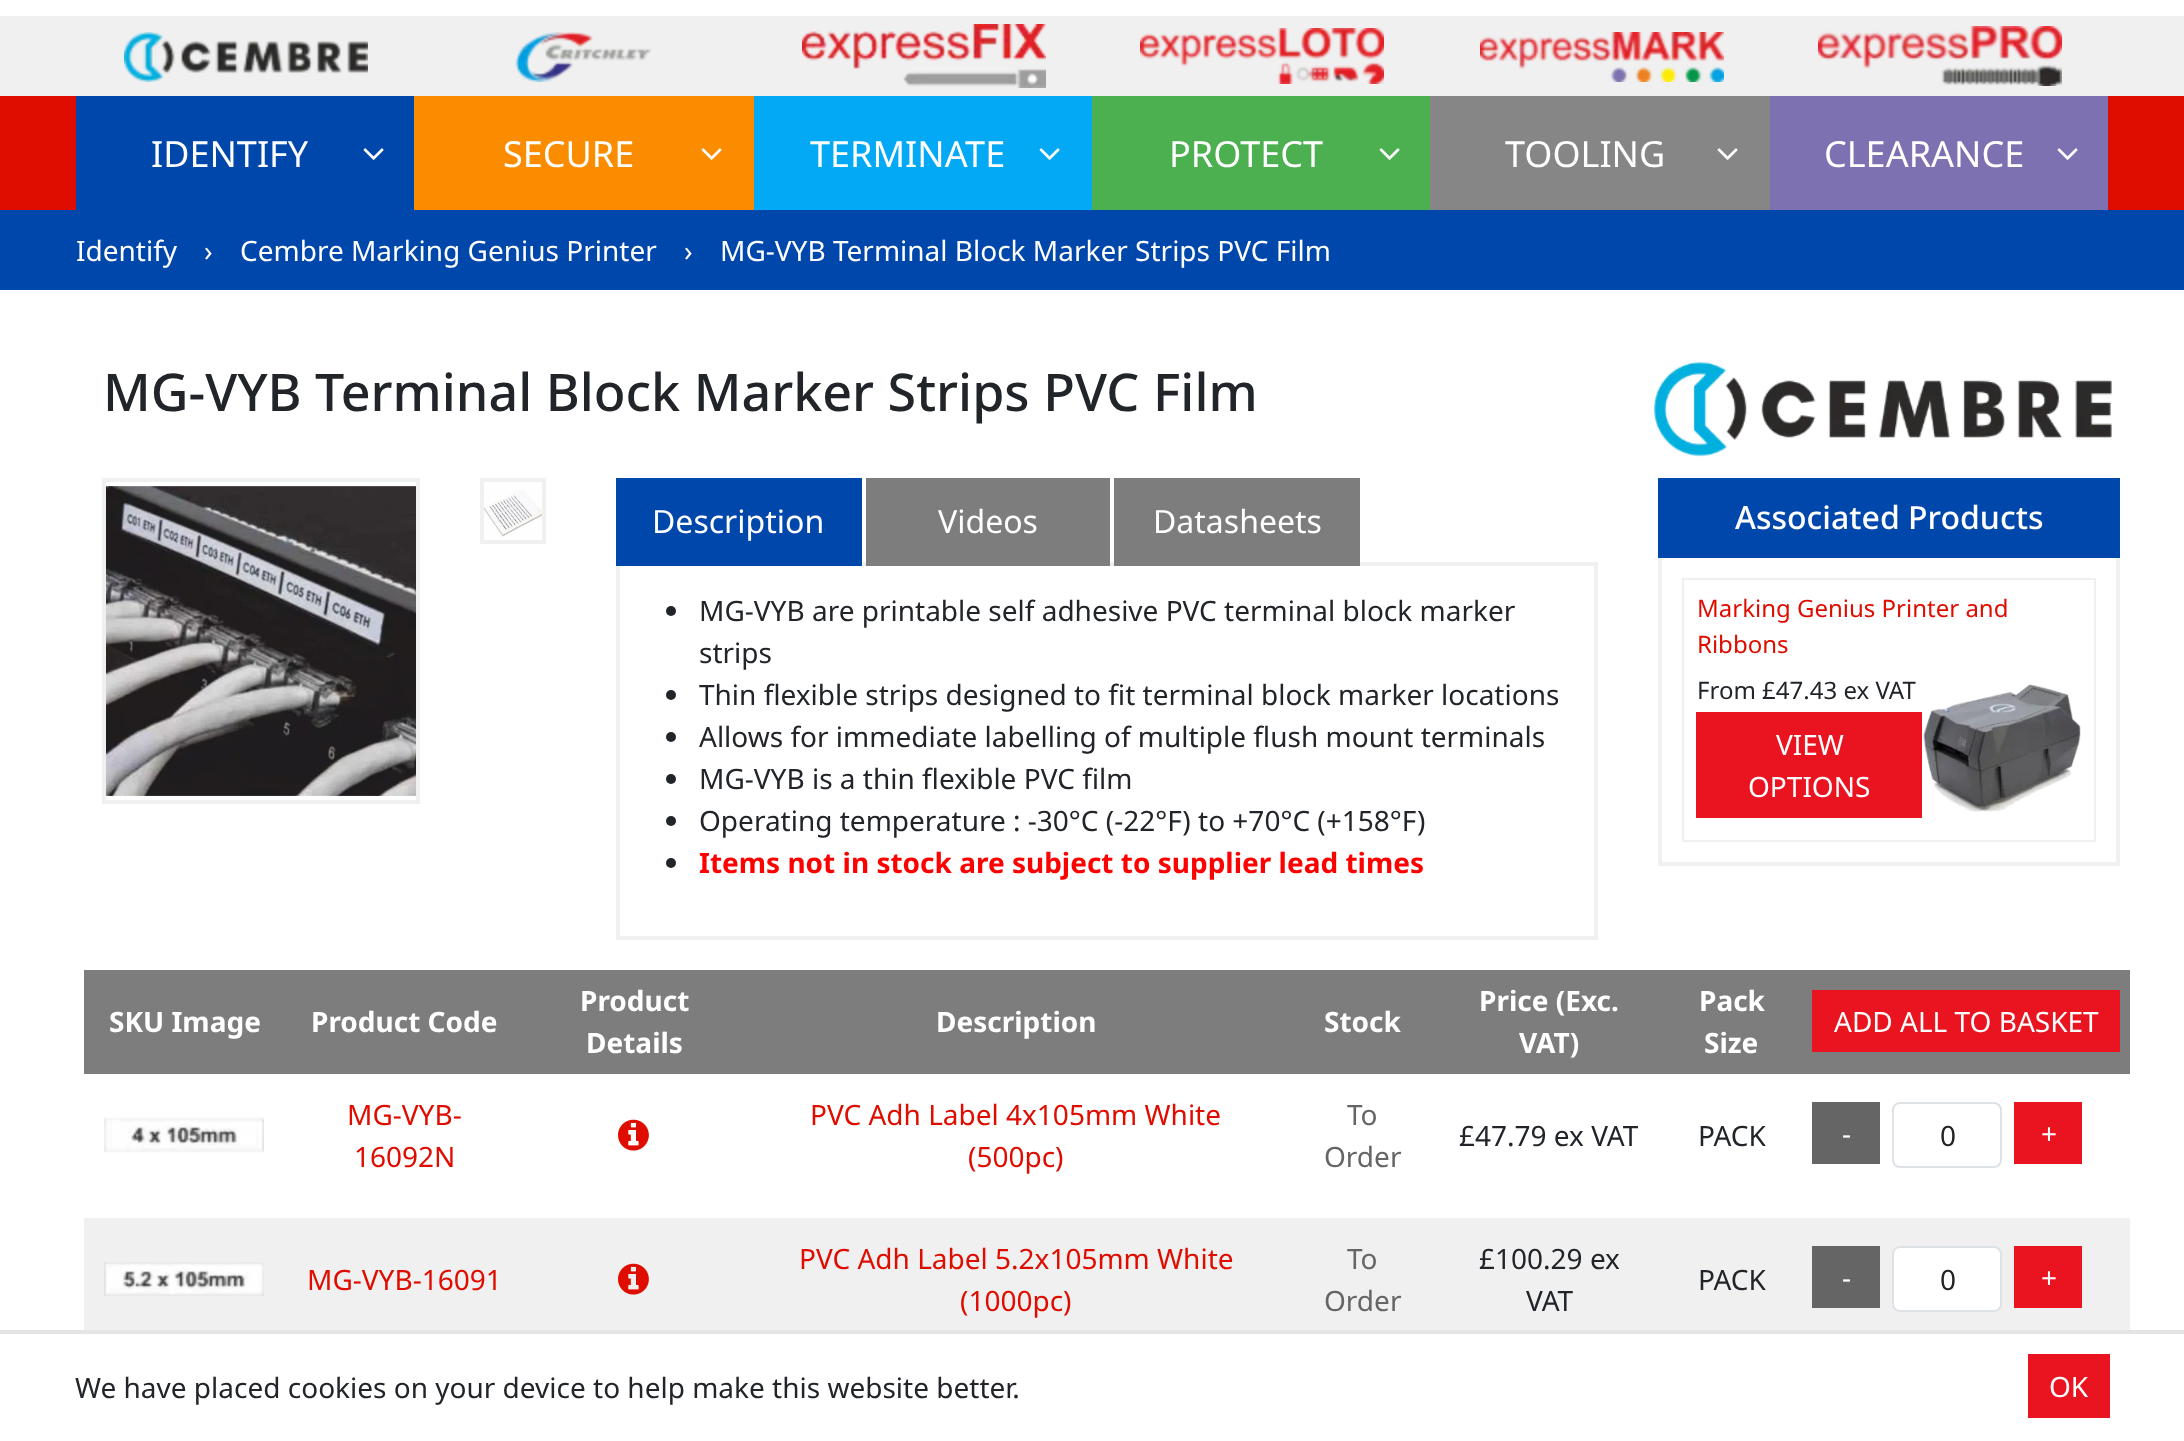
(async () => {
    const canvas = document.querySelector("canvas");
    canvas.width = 2184;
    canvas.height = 1441;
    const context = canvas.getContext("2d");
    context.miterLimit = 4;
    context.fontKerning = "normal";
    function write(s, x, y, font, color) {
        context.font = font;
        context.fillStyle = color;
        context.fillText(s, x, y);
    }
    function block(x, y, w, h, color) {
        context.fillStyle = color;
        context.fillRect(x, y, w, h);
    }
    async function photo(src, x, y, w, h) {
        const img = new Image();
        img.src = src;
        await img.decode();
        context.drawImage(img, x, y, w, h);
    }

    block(0, 0, 2184, 1441, "rgb(255, 255, 255)");
    block(0, 16, 2184, 80, "rgb(240, 240, 240)");
    await photo("media/1.png", 124, 32, 244, 50);
    await photo("media/2.png", 515, 32, 137, 50);
    await photo("media/3.png", 802, 24, 244, 64);
    await photo("media/4.png", 1140, 28, 244, 56);
    await photo("media/5.png", 1480, 32, 244, 50);
    await photo("media/6.png", 1818, 26, 244, 60);
    block(0, 96, 2184, 114, "rgb(223, 12, 0)");
    block(76, 96, 338, 114, "rgb(0, 71, 171)");
    write("IDENTIFY", 151, 167, "36px Noto Sans", "rgb(255, 255, 255)");
    await photo("media/7.png", 363, 148, 21, 12);
    block(414, 96, 340, 114, "rgb(251, 140, 0)");
    write("SECURE", 503, 167, "36px Noto Sans", "rgb(255, 255, 255)");
    await photo("media/8.png", 701, 148, 21, 12);
    block(754, 96, 338, 114, "rgb(3, 169, 244)");
    write("TERMINATE", 810, 167, "36px Noto Sans", "rgb(255, 255, 255)");
    await photo("media/9.png", 1039, 148, 21, 12);
    block(1092, 96, 338, 114, "rgb(76, 175, 80)");
    write("PROTECT", 1169, 167, "36px Noto Sans", "rgb(255, 255, 255)");
    await photo("media/10.png", 1379, 148, 21, 12);
    block(1430, 96, 340, 114, "rgb(133, 134, 133)");
    write("TOOLING", 1505, 167, "36px Noto Sans", "rgb(255, 255, 255)");
    await photo("media/11.png", 1717, 148, 21, 12);
    block(1770, 96, 338, 114, "rgb(126, 113, 177)");
    write("CLEARANCE", 1824, 167, "36px Noto Sans", "rgb(255, 255, 255)");
    await photo("media/12.png", 2057, 148, 21, 12);
    block(0, 210, 2184, 80, "rgb(0, 71, 171)");
    write("Identify", 76, 261, "28px Noto Sans", "rgb(255, 255, 255)");
    write("›", 204, 261, "28px Noto Sans", "rgb(255, 255, 255)");
    write("Cembre Marking Genius Printer", 240, 261, "28px Noto Sans", "rgb(255, 255, 255)");
    write("›", 684, 261, "28px Noto Sans", "rgb(255, 255, 255)");
    write("MG-VYB Terminal Block Marker Strips PVC Film", 720, 261, "28px Noto Sans", "rgb(255, 255, 255)");
    write("MG-VYB Terminal Block Marker Strips PVC Film", 103, 411, "500 52px Noto Sans", "rgb(33, 37, 41)");
    await photo("media/13.png", 1654, 361, 458, 96);
    context.strokeStyle = "rgb(240, 240, 240)";
    context.lineWidth = 4;
    context.strokeRect(104, 480, 314, 322);
    await photo("media/14.png", 106, 486, 310, 310);
    context.strokeRect(482, 480, 62, 62);
    await photo("media/15.png", 484, 489, 58, 48);
    context.strokeRect(618, 564, 978, 374);
    block(616, 478, 246, 88, "rgb(0, 71, 171)");
    write("Description", 652, 533, "32px Noto Sans", "rgb(255, 255, 255)");
    block(866, 478, 244, 88, "rgb(125, 125, 125)");
    write("Videos", 938, 533, "32px Noto Sans", "rgb(255, 255, 255)");
    block(1114, 478, 246, 88, "rgb(125, 125, 125)");
    write("Datasheets", 1153, 533, "32px Noto Sans", "rgb(255, 255, 255)");
    context.fillStyle = "rgb(33, 37, 41)";
    context.beginPath();
    context.arc(671, 611, 5, 0, Math.PI * 2);
    context.fill();
    write("MG-VYB are printable self adhesive PVC terminal block marker", 699, 621, "28px Noto Sans", "rgb(33, 37, 41)");
    write("strips", 699, 663, "28px Noto Sans", "rgb(33, 37, 41)");
    context.beginPath();
    context.arc(671, 695, 5, 0, Math.PI * 2);
    context.fill();
    write("Thin flexible strips designed to fit terminal block marker locations", 699, 705, "28px Noto Sans", "rgb(33, 37, 41)");
    context.beginPath();
    context.arc(671, 737, 5, 0, Math.PI * 2);
    context.fill();
    write("Allows for immediate labelling of multiple flush mount terminals", 699, 747, "28px Noto Sans", "rgb(33, 37, 41)");
    context.beginPath();
    context.arc(671, 779, 5, 0, Math.PI * 2);
    context.fill();
    write("MG-VYB is a thin flexible PVC film", 699, 789, "28px Noto Sans", "rgb(33, 37, 41)");
    context.beginPath();
    context.arc(671, 821, 5, 0, Math.PI * 2);
    context.fill();
    write("Operating temperature : -30°C (-22°F) to +70°C (+158°F)", 699, 831, "28px Noto Sans", "rgb(33, 37, 41)");
    context.beginPath();
    context.arc(671, 863, 5, 0, Math.PI * 2);
    context.fill();
    write("Items not in stock are subject to supplier lead times", 699, 873, "bold 28px Noto Sans", "rgb(255, 0, 0)");
    block(1658, 478, 462, 80, "rgb(0, 71, 171)");
    write("Associated Products", 1735, 529, "500 32px Noto Sans", "rgb(255, 255, 255)");
    block(2116, 558, 4, 308, "rgb(240, 240, 240)");
    block(1658, 862, 462, 4, "rgb(240, 240, 240)");
    block(1658, 558, 4, 308, "rgb(240, 240, 240)");
    context.lineWidth = 2;
    context.strokeRect(1683, 579, 412, 262);
    write("Marking Genius Printer and", 1697, 617, "24px Noto Sans", "rgb(223, 12, 0)");
    write("Ribbons", 1697, 653, "24px Noto Sans", "rgb(223, 12, 0)");
    write("From £47.43 ex VAT", 1697, 699, "24px Noto Sans", "rgb(33, 37, 41)");
    block(1696, 712, 226, 106, "rgb(233, 20, 31)");
    write("VIEW", 1776, 755, "28px Noto Sans", "rgb(255, 255, 255)");
    write("OPTIONS", 1748, 797, "28px Noto Sans", "rgb(255, 255, 255)");
    await photo("media/16.png", 1923, 684, 158, 128);
    block(84, 970, 2046, 104, "rgb(125, 125, 125)");
    write("SKU Image", 109, 1032, "bold 28px Noto Sans", "rgb(255, 255, 255)");
    write("Product Code", 311, 1032, "bold 28px Noto Sans", "rgb(255, 255, 255)");
    write("Product", 580, 1011, "bold 28px Noto Sans", "rgb(255, 255, 255)");
    write("Details", 586, 1053, "bold 28px Noto Sans", "rgb(255, 255, 255)");
    write("Description", 936, 1032, "bold 28px Noto Sans", "rgb(255, 255, 255)");
    write("Stock", 1324, 1032, "bold 28px Noto Sans", "rgb(255, 255, 255)");
    write("Price (Exc.", 1479, 1011, "bold 28px Noto Sans", "rgb(255, 255, 255)");
    write("VAT)", 1519, 1053, "bold 28px Noto Sans", "rgb(255, 255, 255)");
    write("Pack", 1699, 1011, "bold 28px Noto Sans", "rgb(255, 255, 255)");
    write("Size", 1704, 1053, "bold 28px Noto Sans", "rgb(255, 255, 255)");
    block(1812, 990, 308, 62, "rgb(233, 20, 31)");
    write("ADD ALL TO BASKET", 1834, 1032, "28px Noto Sans", "rgb(255, 255, 255)");
    await photo("media/17.png", 104, 1117, 160, 36);
    write("MG-VYB-", 347, 1125, "28px Noto Sans", "rgb(223, 12, 0)");
    write("16092N", 354, 1167, "28px Noto Sans", "rgb(223, 12, 0)");
    await photo("media/18.png", 618, 1119, 31, 32);
    write("PVC Adh Label 4x105mm White", 810, 1125, "28px Noto Sans", "rgb(223, 12, 0)");
    write("(500pc)", 968, 1167, "28px Noto Sans", "rgb(223, 12, 0)");
    write("To", 1347, 1125, "28px Noto Sans", "rgb(101, 101, 101)");
    write("Order", 1324, 1167, "28px Noto Sans", "rgb(101, 101, 101)");
    write("£47.79 ex VAT", 1459, 1146, "28px Noto Sans", "rgb(33, 37, 41)");
    write("PACK", 1698, 1146, "28px Noto Sans", "rgb(33, 37, 41)");
    block(1812, 1102, 68, 62, "rgb(101, 101, 101)");
    write("-", 1842, 1144, "28px Noto Sans", "rgb(255, 255, 255)");
    context.beginPath();
    context.roundRect(1893, 1103, 108, 64, 7);
    context.strokeStyle = "rgb(222, 226, 230)";
    context.stroke();
    write("0", 1940, 1146, "28px Noto Sans", "rgb(33, 37, 41)");
    block(2014, 1102, 68, 62, "rgb(233, 20, 31)");
    write("+", 2041, 1144, "28px Noto Sans", "rgb(255, 255, 255)");
    block(84, 1218, 2046, 112, "rgb(240, 240, 240)");
    await photo("media/19.png", 104, 1262, 160, 34);
    write("MG-VYB-16091", 307, 1290, "28px Noto Sans", "rgb(223, 12, 0)");
    await photo("media/20.png", 618, 1263, 31, 32);
    write("PVC Adh Label 5.2x105mm White", 799, 1269, "28px Noto Sans", "rgb(223, 12, 0)");
    write("(1000pc)", 960, 1311, "28px Noto Sans", "rgb(223, 12, 0)");
    write("To", 1347, 1269, "28px Noto Sans", "rgb(101, 101, 101)");
    write("Order", 1324, 1311, "28px Noto Sans", "rgb(101, 101, 101)");
    write("£100.29 ex", 1479, 1269, "28px Noto Sans", "rgb(33, 37, 41)");
    write("VAT", 1526, 1311, "28px Noto Sans", "rgb(33, 37, 41)");
    write("PACK", 1698, 1290, "28px Noto Sans", "rgb(33, 37, 41)");
    block(1812, 1246, 68, 62, "rgb(101, 101, 101)");
    write("-", 1842, 1288, "28px Noto Sans", "rgb(255, 255, 255)");
    context.beginPath();
    context.roundRect(1893, 1247, 108, 64, 7);
    context.fill();
    context.stroke();
    write("0", 1940, 1290, "28px Noto Sans", "rgb(33, 37, 41)");
    block(2014, 1246, 68, 62, "rgb(233, 20, 31)");
    write("+", 2041, 1288, "28px Noto Sans", "rgb(255, 255, 255)");
    block(0, 1330, 2184, 4, "rgb(228, 228, 228)");
    write("We have placed cookies on your device to help make this website better.", 75, 1398, "28px Noto Sans", "rgb(33, 37, 41)");
    block(2028, 1354, 82, 64, "rgb(233, 20, 31)");
    write("OK", 2049, 1397, "28px Noto Sans", "rgb(255, 255, 255)");
})();
